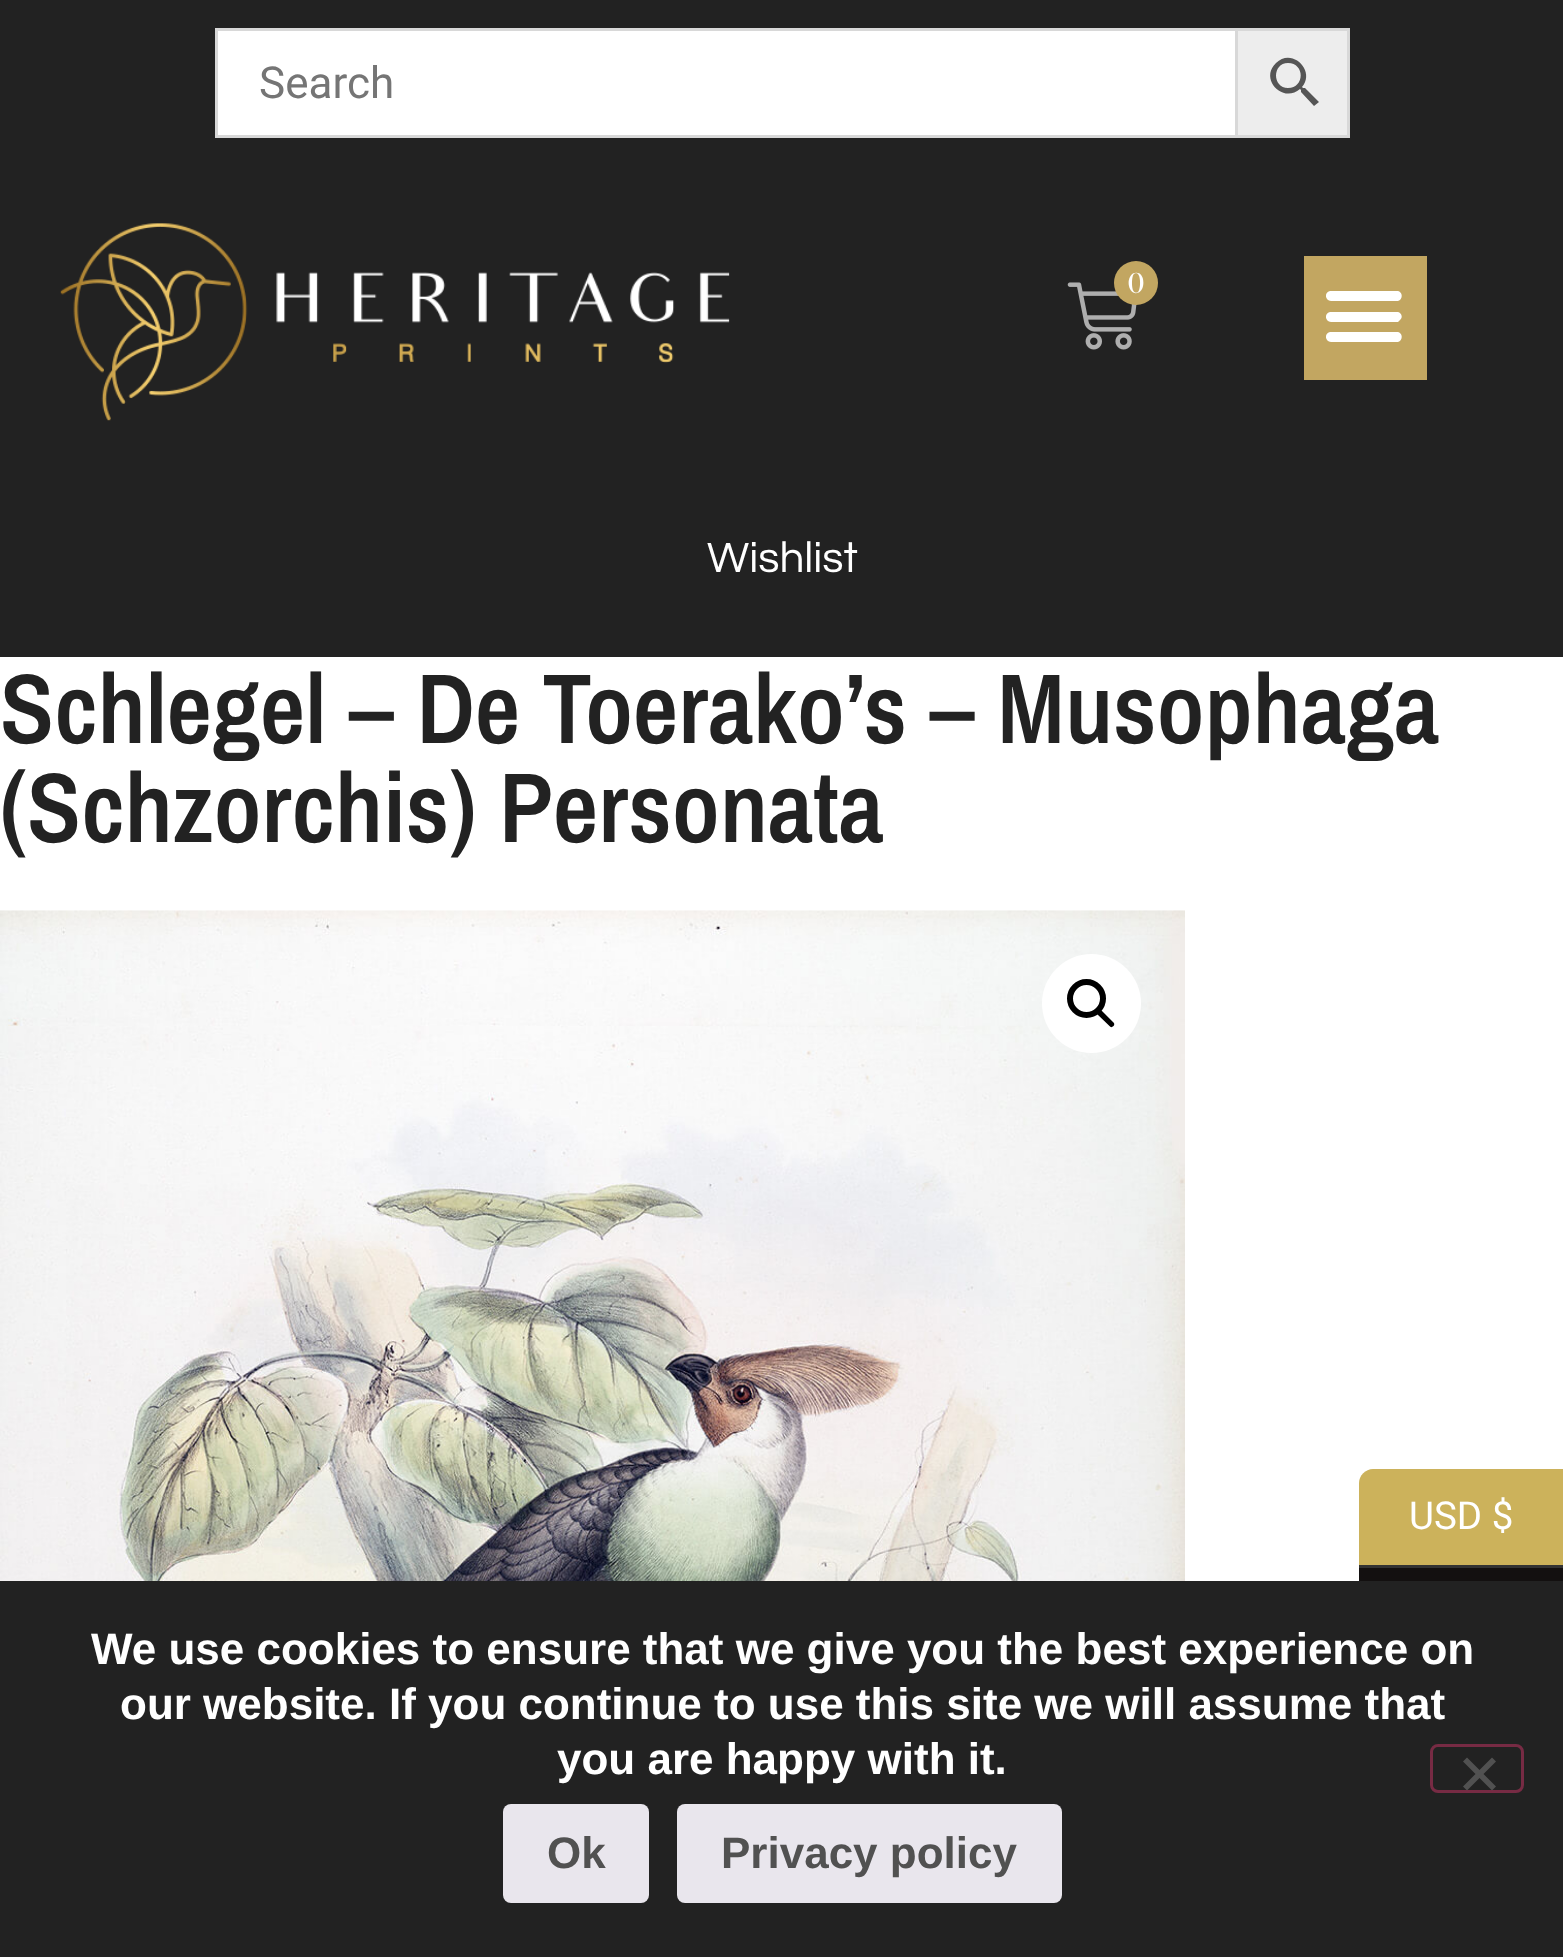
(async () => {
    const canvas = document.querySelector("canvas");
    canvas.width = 1563;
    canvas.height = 1957;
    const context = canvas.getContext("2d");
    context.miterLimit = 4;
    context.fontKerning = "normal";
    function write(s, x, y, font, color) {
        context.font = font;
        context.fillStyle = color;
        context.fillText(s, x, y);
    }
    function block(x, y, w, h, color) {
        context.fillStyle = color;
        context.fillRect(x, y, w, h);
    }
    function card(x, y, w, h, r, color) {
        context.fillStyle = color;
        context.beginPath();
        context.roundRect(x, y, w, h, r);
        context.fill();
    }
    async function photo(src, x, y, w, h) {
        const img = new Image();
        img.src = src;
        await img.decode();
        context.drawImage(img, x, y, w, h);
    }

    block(0, 0, 1563, 1957, "rgb(255, 255, 255)");
    block(0, 0, 1563, 657, "rgb(34, 34, 34)");
    block(218, 31, 1017, 104, "rgb(255, 255, 255)");
    context.fillStyle = "rgb(237, 237, 237)";
    context.beginPath();
    context.rect(1236.5, 29.5, 112, 107);
    context.fill();
    context.strokeStyle = "rgb(216, 216, 216)";
    context.lineWidth = 3;
    context.stroke();
    context.strokeRect(216.5, 29.5, 1020, 107);
    write("Search", 259, 98, "44px Roboto", "rgb(117, 117, 117)");
    context.fillStyle = "rgb(85, 85, 85)";
    context.beginPath();
    context.moveTo(1305, 88);
    context.lineTo(1303, 88);
    context.lineTo(1302, 87);
    context.bezierCurveTo(1316, 71, 1292, 47, 1276, 63);
    context.bezierCurveTo(1259, 79, 1283, 104, 1300, 89);
    context.lineTo(1301, 90);
    context.lineTo(1301, 92);
    context.lineTo(1314, 106);
    context.lineTo(1319, 102);
    context.closePath();
    context.moveTo(1288, 88);
    context.bezierCurveTo(1272, 88, 1272, 63, 1288, 63);
    context.bezierCurveTo(1305, 63, 1305, 88, 1288, 88);
    context.closePath();
    context.fill();
    await photo("media/1.png", 60, 223, 670, 198);
    await photo("media/2.png", 1067, 282, 70, 68);
    context.fillStyle = "rgb(194, 166, 97)";
    context.beginPath();
    context.arc(1136, 283, 22, 0, Math.PI * 2);
    context.fill();
    write("0", 1128, 293, "bold 28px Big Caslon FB", "rgb(255, 255, 255)");
    block(1304, 256, 123, 124, "rgb(194, 166, 97)");
    context.fillStyle = "rgb(255, 255, 255)";
    context.beginPath();
    context.moveTo(1331, 301);
    context.lineTo(1398, 301);
    context.lineTo(1400, 300);
    context.bezierCurveTo(1403, 297, 1402, 292, 1398, 291);
    context.lineTo(1330, 291);
    context.bezierCurveTo(1324, 292, 1325, 301, 1331, 301);
    context.closePath();
    context.moveTo(1331, 322);
    context.lineTo(1398, 322);
    context.lineTo(1400, 320);
    context.bezierCurveTo(1403, 318, 1402, 313, 1398, 312);
    context.lineTo(1330, 312);
    context.bezierCurveTo(1324, 313, 1325, 322, 1331, 322);
    context.closePath();
    context.moveTo(1331, 342);
    context.lineTo(1398, 342);
    context.lineTo(1400, 341);
    context.bezierCurveTo(1403, 338, 1402, 333, 1398, 332);
    context.lineTo(1330, 332);
    context.bezierCurveTo(1324, 333, 1325, 342, 1331, 342);
    context.closePath();
    context.fill();
    write("Wishlist", 707, 572, "44px Questrial", "rgb(255, 255, 255)");
    write("Schlegel – De Toerako’s – Musophaga", 0, 743, "600 99px Archivo Narrow", "rgb(34, 34, 34)");
    write("(Schzorchis) Personata", 0, 842, "600 99px Archivo Narrow", "rgb(34, 34, 34)");
    await photo("media/3.png", 0, 910, 1185, 671);
    context.fillStyle = "rgb(255, 255, 255)";
    context.beginPath();
    context.arc(1091.5, 1003.5, 49.5, 0, Math.PI * 2);
    context.fill();
    context.beginPath();
    context.arc(1086.5, 998.5, 16.5, 0, Math.PI * 2);
    context.strokeStyle = "rgb(0, 0, 0)";
    context.lineWidth = 6;
    context.stroke();
    context.fillStyle = "rgb(0, 0, 0)";
    context.beginPath();
    context.moveTo(1097.5, 1010.5);
    context.bezierCurveTo(1099, 1009.5, 1100.5, 1009.5, 1101.5, 1010.5);
    context.lineTo(1113.5, 1022.5);
    context.bezierCurveTo(1114.5, 1023.5, 1114.5, 1025, 1113.5, 1026);
    context.bezierCurveTo(1112, 1027.5, 1110.5, 1027.5, 1109.5, 1026);
    context.lineTo(1097.5, 1014.5);
    context.bezierCurveTo(1096.5, 1013.5, 1096.5, 1011.5, 1097.5, 1010.5);
    context.closePath();
    context.fill();
    context.fillStyle = "rgb(204, 178, 91)";
    context.beginPath();
    context.moveTo(1373, 1469);
    context.lineTo(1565, 1469);
    context.lineTo(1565, 1568);
    context.lineTo(1359, 1568);
    context.lineTo(1359, 1483);
    context.bezierCurveTo(1359, 1475.5, 1365.5, 1469, 1373, 1469);
    context.closePath();
    context.fill();
    block(1359, 1565, 204, 3, "rgb(51, 51, 51)");
    write("USD $", 1409, 1529, "38.5px Roboto", "rgb(255, 255, 255)");
    block(1359, 1568, 204, 13, "rgb(19, 16, 16)");
    block(0, 1581, 1563, 376, "rgb(34, 34, 34)");
    write("We use cookies to ensure that we give you the best experience on", 91, 1664, "bold 44px Liberation Sans", "rgb(255, 255, 255)");
    write("our website. If you continue to use this site we will assume that", 120, 1719, "bold 44px Liberation Sans", "rgb(255, 255, 255)");
    write("you are happy with it.", 557, 1774, "bold 44px Liberation Sans", "rgb(255, 255, 255)");
    context.beginPath();
    context.roundRect(1431.5, 1745.5, 91, 46, 6.5);
    context.strokeStyle = "rgb(119, 43, 68)";
    context.lineWidth = 3;
    context.stroke();
    context.fillStyle = "rgb(81, 81, 81)";
    context.beginPath();
    context.moveTo(1492, 1757.5);
    context.lineTo(1496, 1761.5);
    context.lineTo(1467, 1790.5);
    context.lineTo(1463, 1786.5);
    context.closePath();
    context.fill();
    context.beginPath();
    context.moveTo(1463, 1761.5);
    context.lineTo(1467, 1757.5);
    context.lineTo(1496, 1786.5);
    context.lineTo(1492, 1790.5);
    context.closePath();
    context.fill();
    card(503, 1804, 146, 99, 8, "rgb(233, 230, 237)");
    write("Ok", 547, 1868, "bold 44px Liberation Sans", "rgb(81, 81, 81)");
    card(677, 1804, 385, 99, 8, "rgb(233, 230, 237)");
    write("Privacy policy", 721, 1868, "bold 44px Liberation Sans", "rgb(81, 81, 81)");
})();
